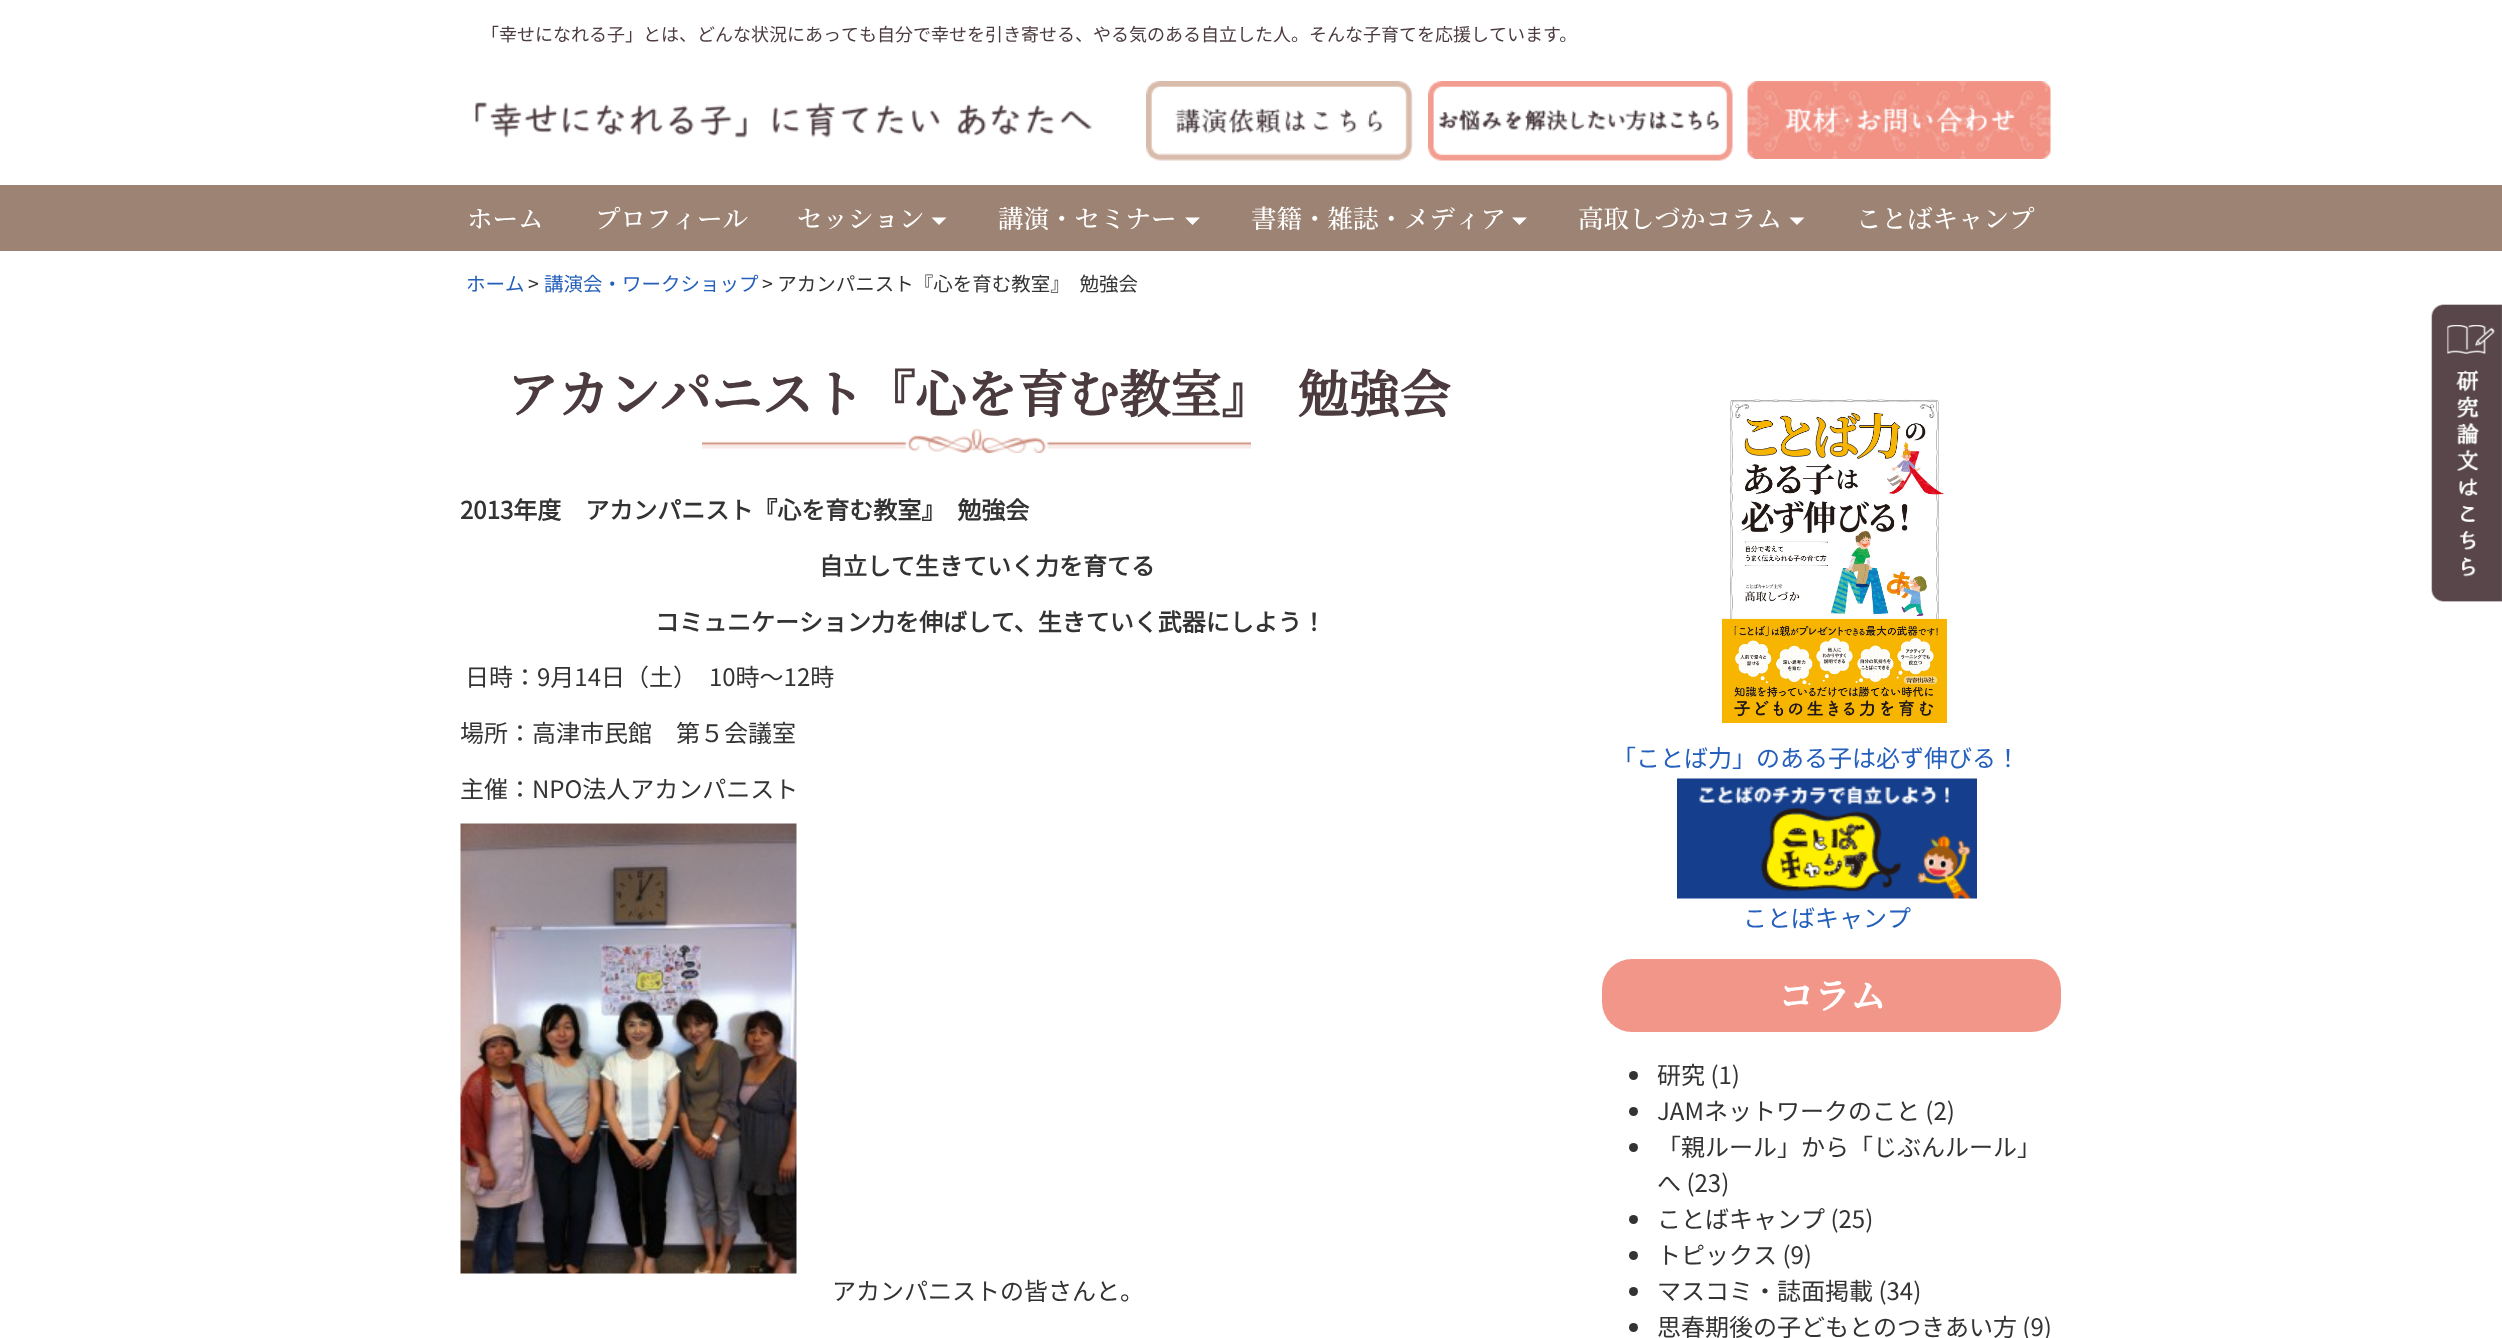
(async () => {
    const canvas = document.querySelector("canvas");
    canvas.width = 2502;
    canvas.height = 1338;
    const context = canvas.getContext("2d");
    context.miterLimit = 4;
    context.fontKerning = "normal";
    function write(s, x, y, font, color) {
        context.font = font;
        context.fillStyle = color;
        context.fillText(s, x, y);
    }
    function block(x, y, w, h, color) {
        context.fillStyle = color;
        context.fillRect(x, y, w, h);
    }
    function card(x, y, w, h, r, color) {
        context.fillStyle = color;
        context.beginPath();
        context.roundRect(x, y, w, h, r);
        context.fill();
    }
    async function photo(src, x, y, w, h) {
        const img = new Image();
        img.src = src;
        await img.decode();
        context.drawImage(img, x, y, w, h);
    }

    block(0, 0, 2502, 1338, "rgb(255, 255, 255)");
    write("「幸せになれる子」とは、どんな状況にあっても自分で幸せを引き寄せる、やる気のある自立した人。そんな子育てを応援しています。", 481, 41, "100 18px Noto Sans JP", "rgb(75, 59, 63)");
    await photo("media/1.png", 475, 102, 617, 36);
    await photo("media/2.png", 1146, 81, 267, 80);
    await photo("media/3.png", 1428, 81, 305, 80);
    await photo("media/4.png", 1747, 81, 304, 78);
    block(0, 185, 2502, 66, "rgb(156, 131, 115)");
    write("ホーム", 467, 228, "200 25.5px Noto Serif JP", "rgb(255, 255, 255)");
    write("プロフィール", 595, 228, "200 25.5px Noto Serif JP", "rgb(255, 255, 255)");
    write("セッション", 797, 228, "200 25.5px Noto Serif JP", "rgb(255, 255, 255)");
    context.beginPath();
    context.moveTo(931.5, 217.5);
    context.lineTo(946.5, 217.5);
    context.lineTo(939, 225);
    context.closePath();
    context.fill();
    write("講演・セミナー", 998, 228, "200 25.5px Noto Serif JP", "rgb(255, 255, 255)");
    context.beginPath();
    context.moveTo(1185, 217.5);
    context.lineTo(1200, 217.5);
    context.lineTo(1192.5, 225);
    context.closePath();
    context.fill();
    write("書籍・雑誌・メディア", 1251, 228, "200 25.5px Noto Serif JP", "rgb(255, 255, 255)");
    context.beginPath();
    context.moveTo(1512, 217.5);
    context.lineTo(1527, 217.5);
    context.lineTo(1519.5, 225);
    context.closePath();
    context.fill();
    write("高取しづかコラム", 1578, 228, "200 25.5px Noto Serif JP", "rgb(255, 255, 255)");
    context.beginPath();
    context.moveTo(1789.5, 217.5);
    context.lineTo(1804.5, 217.5);
    context.lineTo(1797, 225);
    context.closePath();
    context.fill();
    write("ことばキャンプ", 1856, 228, "200 25.5px Noto Serif JP", "rgb(255, 255, 255)");
    write("ホーム", 466, 291, "100 19.5px Noto Sans JP", "rgb(36, 95, 187)");
    write(">", 528, 291, "100 19.5px Noto Sans JP", "rgb(51, 51, 51)");
    write("講演会・ワークショップ", 544, 291, "100 19.5px Noto Sans JP", "rgb(36, 95, 187)");
    write("> アカンパニスト『心を育む教室』　勉強会", 762, 291, "100 19.5px Noto Sans JP", "rgb(51, 51, 51)");
    await photo("media/5.png", 702, 429, 549, 24);
    write("アカンパニスト『心を育む教室』　勉強会", 507, 413, "bold 51px Noto Serif JP", "rgb(75, 59, 63)");
    write("2013年度　アカンパニスト『心を育む教室』　勉強会", 460, 519, "bold 24px Noto Sans JP", "rgb(51, 51, 51)");
    write("自立して生きていく力を育てる", 819, 575, "bold 24px Noto Sans JP", "rgb(51, 51, 51)");
    write("コミュニケーション力を伸ばして、生きていく武器にしよう！", 655, 631, "bold 24px Noto Sans JP", "rgb(51, 51, 51)");
    write("日時：9月14日（土）　10時～12時", 465, 686, "100 24px Noto Sans JP", "rgb(51, 51, 51)");
    write("場所：高津市民館　第５会議室", 460, 742, "100 24px Noto Sans JP", "rgb(51, 51, 51)");
    write("主催：NPO法人アカンパニスト", 460, 798, "100 24px Noto Sans JP", "rgb(51, 51, 51)");
    await photo("media/6.png", 460, 823, 337, 451);
    write("アカンパニストの皆さんと。", 832, 1300, "100 24px Noto Sans JP", "rgb(51, 51, 51)");
    await photo("media/7.png", 1722, 399, 225, 324);
    write("「ことば力」のある子は必ず伸びる！", 1612, 767, "100 24px Noto Sans JP", "rgb(36, 95, 187)");
    await photo("media/8.png", 1677, 778, 300, 121);
    write("ことばキャンプ", 1743, 927, "100 24px Noto Sans JP", "rgb(36, 95, 187)");
    card(1602, 959, 459, 73, 30, "rgb(242, 150, 138)");
    write("コラム", 1778, 1009, "bold 36px Noto Serif JP", "rgb(255, 255, 255)");
    context.fillStyle = "rgb(51, 51, 51)";
    context.beginPath();
    context.arc(1633.5, 1075.5, 4.5, 0, Math.PI * 2);
    context.fill();
    write("研究 (1)", 1657, 1084, "100 24px Noto Sans JP", "rgb(51, 51, 51)");
    context.beginPath();
    context.arc(1633.5, 1111.5, 4.5, 0, Math.PI * 2);
    context.fill();
    write("JAMネットワークのこと (2)", 1657, 1120, "100 24px Noto Sans JP", "rgb(51, 51, 51)");
    context.beginPath();
    context.arc(1633.5, 1147.5, 4.5, 0, Math.PI * 2);
    context.fill();
    write("「親ルール」から「じぶんルール」", 1657, 1156, "100 24px Noto Sans JP", "rgb(51, 51, 51)");
    write("へ (23)", 1657, 1192, "100 24px Noto Sans JP", "rgb(51, 51, 51)");
    context.beginPath();
    context.arc(1633.5, 1219.5, 4.5, 0, Math.PI * 2);
    context.fill();
    write("ことばキャンプ (25)", 1657, 1228, "100 24px Noto Sans JP", "rgb(51, 51, 51)");
    context.beginPath();
    context.arc(1633.5, 1255.5, 4.5, 0, Math.PI * 2);
    context.fill();
    write("トピックス (9)", 1657, 1264, "100 24px Noto Sans JP", "rgb(51, 51, 51)");
    context.beginPath();
    context.arc(1633.5, 1291.5, 4.5, 0, Math.PI * 2);
    context.fill();
    write("マスコミ・誌面掲載 (34)", 1657, 1300, "100 24px Noto Sans JP", "rgb(51, 51, 51)");
    context.beginPath();
    context.arc(1633.5, 1327.5, 4.5, 0, Math.PI * 2);
    context.fill();
    write("思春期後の子どもとのつきあい方 (9)", 1657, 1336, "100 24px Noto Sans JP", "rgb(51, 51, 51)");
    await photo("media/9.png", 2431, 304, 71, 298);
})();
